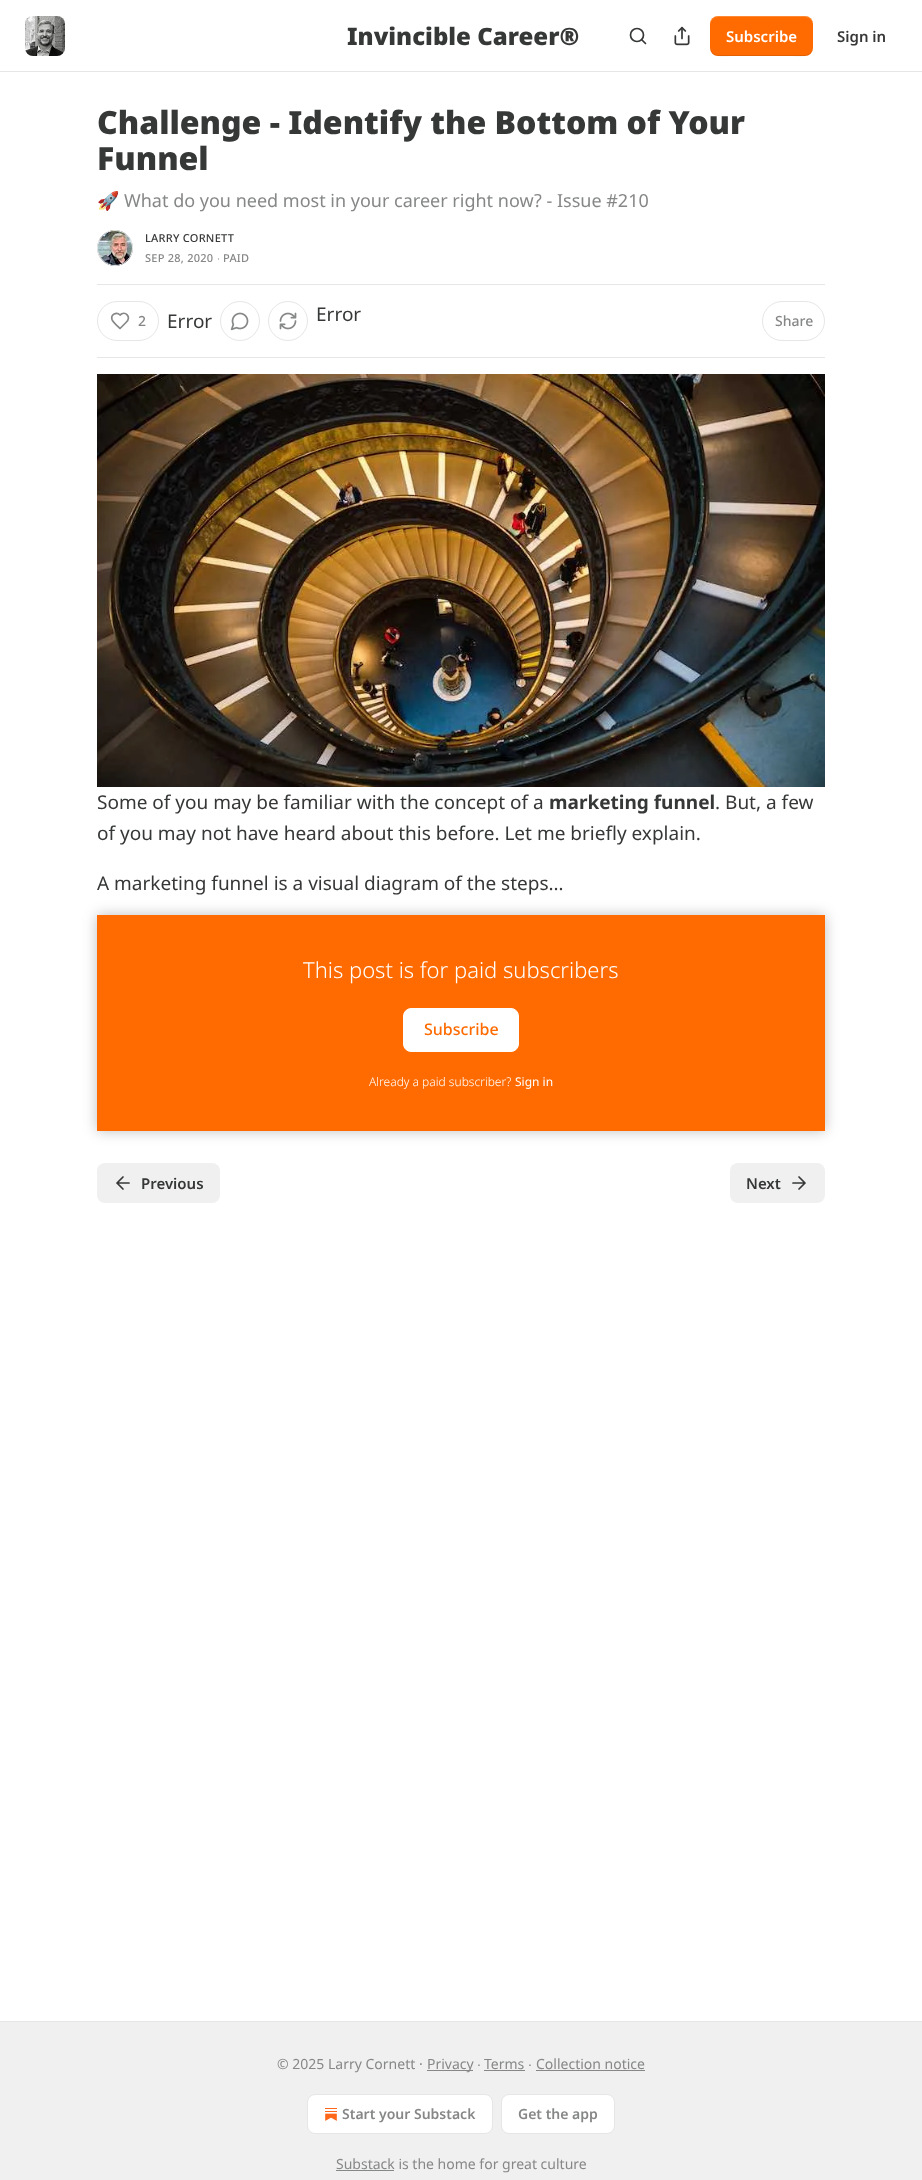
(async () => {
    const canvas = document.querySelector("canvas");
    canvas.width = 922;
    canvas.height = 2180;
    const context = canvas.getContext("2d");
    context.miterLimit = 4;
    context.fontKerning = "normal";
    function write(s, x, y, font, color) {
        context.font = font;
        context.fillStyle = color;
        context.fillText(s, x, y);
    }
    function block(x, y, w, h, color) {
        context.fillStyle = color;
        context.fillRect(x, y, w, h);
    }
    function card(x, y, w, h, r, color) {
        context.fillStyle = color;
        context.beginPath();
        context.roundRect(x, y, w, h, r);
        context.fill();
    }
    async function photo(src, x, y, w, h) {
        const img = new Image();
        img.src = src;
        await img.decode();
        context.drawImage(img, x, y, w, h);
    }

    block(0, 0, 922, 2180, "rgb(255, 255, 255)");
    block(0, 71, 922, 1, "rgb(230, 230, 230)");
    await photo("media/1.png", 25, 16, 40, 40);
    write("Invincible Career®", 347, 45, "900 24px Noto Sans", "rgb(54, 55, 55)");
    context.beginPath();
    context.arc(637, 35, 6.5, 0, Math.PI * 2);
    context.strokeStyle = "rgb(54, 55, 55)";
    context.lineWidth = 1.7;
    context.stroke();
    context.beginPath();
    context.moveTo(645.5, 43.5);
    context.lineTo(642, 40);
    context.lineCap = "round";
    context.lineJoin = "round";
    context.stroke();
    await photo("media/2.png", 674, 26, 16, 20);
    card(710, 16, 103, 40, 8, "rgb(255, 107, 0)");
    context.fillStyle = "rgba(0, 0, 0, 0.1)";
    context.beginPath();
    context.moveTo(710, 47);
    context.bezierCurveTo(710, 59, 724, 56, 732, 56);
    context.lineTo(790, 56);
    context.bezierCurveTo(799, 56, 813, 59, 813, 47);
    context.bezierCurveTo(813, 51, 809, 55, 805, 55);
    context.lineTo(718, 55);
    context.bezierCurveTo(714, 55, 710, 51, 710, 47);
    context.closePath();
    context.fill();
    context.fillStyle = "rgba(255, 255, 255, 0.2)";
    context.beginPath();
    context.moveTo(718, 17);
    context.lineTo(805, 17);
    context.bezierCurveTo(809, 17, 813, 21, 813, 25);
    context.bezierCurveTo(813, 13, 799, 16, 790, 16);
    context.lineTo(732, 16);
    context.bezierCurveTo(724, 16, 710, 13, 710, 25);
    context.bezierCurveTo(710, 21, 714, 17, 718, 17);
    context.closePath();
    context.fill();
    write("Subscribe", 726, 42, "600 15px Noto Sans", "rgb(255, 255, 255)");
    write("Sign in", 837, 42, "600 15px Noto Sans", "rgb(54, 55, 55)");
    write("Challenge - Identify the Bottom of Your", 97, 134, "900 32px Noto Sans", "rgb(54, 55, 55)");
    write("Funnel", 97, 170, "900 32px Noto Sans", "rgb(54, 55, 55)");
    write("🚀", 97, 207, "18px Noto Color Emoji", "rgb(134, 135, 135)");
    write("What do you need most in your career right now? - Issue #210", 124, 207, "18px Noto Sans", "rgb(134, 135, 135)");
    context.beginPath();
    context.arc(115, 248, 17.5, 0, Math.PI * 2);
    context.strokeStyle = "rgb(230, 230, 230)";
    context.lineWidth = 1;
    context.stroke();
    await photo("media/3.png", 97, 230, 36, 36);
    context.beginPath();
    context.arc(115, 248, 17.5, 0, Math.PI * 2);
    context.stroke();
    context.letterSpacing = "0.25px";
    write("LARRY CORNETT", 145, 242, "500 11px Noto Sans", "rgb(54, 55, 55)");
    write("SEP 28, 2020", 145, 262, "500 11px Noto Sans", "rgb(134, 135, 135)");
    write("∙", 217, 262, "11px Liberation Sans", "rgb(134, 135, 135)");
    write("PAID", 223, 262, "500 11px Noto Sans", "rgb(134, 135, 135)");
    block(97, 284, 728, 1, "rgb(230, 230, 230)");
    block(97, 357, 728, 1, "rgb(230, 230, 230)");
    context.beginPath();
    context.roundRect(97.5, 301.5, 61, 39, 19.5);
    context.lineJoin = "miter";
    context.stroke();
    context.beginPath();
    context.moveTo(126, 322.5);
    context.bezierCurveTo(132, 316.5, 125, 310.5, 120, 315);
    context.bezierCurveTo(116.5, 311.5, 110.5, 314.5, 112, 319.5);
    context.bezierCurveTo(113, 322.5, 118, 326.5, 120, 328.5);
    context.closePath();
    context.strokeStyle = "rgb(134, 135, 135)";
    context.lineWidth = 1.7;
    context.lineJoin = "round";
    context.stroke();
    context.letterSpacing = "0px";
    write("2", 138, 326, "500 14px Noto Sans", "rgb(134, 135, 135)");
    write("Error", 167, 328, "19px Noto Sans", "rgb(54, 55, 55)");
    context.beginPath();
    context.arc(240, 321, 19.5, 0, Math.PI * 2);
    context.strokeStyle = "rgb(230, 230, 230)";
    context.lineWidth = 1;
    context.stroke();
    await photo("media/4.png", 230, 312, 19, 19);
    context.beginPath();
    context.arc(288, 321, 19.5, 0, Math.PI * 2);
    context.stroke();
    await photo("media/5.png", 279, 312, 18, 18);
    write("Error", 316, 321, "19px Noto Sans", "rgb(54, 55, 55)");
    context.beginPath();
    context.roundRect(762.5, 301.5, 62, 39, 19.5);
    context.lineJoin = "miter";
    context.stroke();
    write("Share", 775, 326, "500 14px Noto Sans", "rgb(134, 135, 135)");
    await photo("media/6.png", 97, 374, 728, 413);
    write("Some of you may be familiar with the concept of a", 97, 809, "19px Noto Sans", "rgb(54, 55, 55)");
    write("marketing funnel", 549, 809, "bold 19px Noto Sans", "rgb(54, 55, 55)");
    write(". But, a few", 715, 809, "19px Noto Sans", "rgb(54, 55, 55)");
    write("of you may not have heard about this before. Let me briefly explain.", 97, 840, "19px Noto Sans", "rgb(54, 55, 55)");
    write("A marketing funnel is a visual diagram of the steps…", 97, 890, "19px Noto Sans", "rgb(54, 55, 55)");
    block(97, 915, 728, 216, "rgb(255, 107, 0)");
    context.fillStyle = "rgb(255, 255, 255)";
    context.beginPath();
    context.roundRect(403.5, 1008.5, 115, 43, 7.5);
    context.fill();
    context.strokeStyle = "rgb(255, 255, 255)";
    context.stroke();
    context.save();
    context.beginPath();
    context.moveTo(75, 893);
    context.lineTo(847, 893);
    context.lineTo(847, 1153);
    context.lineTo(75, 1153);
    context.closePath();
    context.moveTo(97, 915);
    context.lineTo(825, 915);
    context.lineTo(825, 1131);
    context.lineTo(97, 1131);
    context.closePath();
    context.clip("evenodd");
    context.fillStyle = "rgba(0, 0, 0, 0.25)";
    context.filter = "blur(7px)";
    context.beginPath();
    context.rect(97, 915, 728, 216);
    context.fill();
    context.filter = "none";
    context.restore();
    write("This post is for paid subscribers", 303, 978, "300 22px Noto Sans", "rgb(255, 255, 255)");
    write("Subscribe", 424, 1035, "500 16px Noto Sans", "rgb(255, 107, 0)");
    write("Already a paid subscriber?", 369, 1086, "300 12px Noto Sans", "rgb(255, 255, 255)");
    write("Sign in", 515, 1086, "12px Noto Sans", "rgb(255, 255, 255)");
    card(97, 1163, 123, 40, 8, "rgb(240, 240, 240)");
    context.beginPath();
    context.moveTo(123, 1189);
    context.lineTo(117, 1183);
    context.lineTo(123, 1177);
    context.moveTo(129, 1183);
    context.lineTo(117, 1183);
    context.strokeStyle = "rgb(54, 55, 55)";
    context.lineWidth = 1.7;
    context.lineJoin = "round";
    context.stroke();
    write("Previous", 141, 1189, "600 15px Noto Sans", "rgb(54, 55, 55)");
    card(730, 1163, 95, 40, 8, "rgb(240, 240, 240)");
    write("Next", 746, 1189, "600 15px Noto Sans", "rgb(54, 55, 55)");
    context.beginPath();
    context.moveTo(793, 1183);
    context.lineTo(805, 1183);
    context.moveTo(799, 1177);
    context.lineTo(805, 1183);
    context.lineTo(799, 1189);
    context.stroke();
    block(0, 2022, 922, 158, "rgb(240, 240, 240)");
    block(0, 2021, 922, 1, "rgb(230, 230, 230)");
    write("© 2025 Larry Cornett ·", 277, 2069, "14px Noto Sans", "rgb(134, 135, 135)");
    block(427, 2070, 46, 1, "rgb(134, 135, 135)");
    write("Privacy", 427, 2069, "14px Noto Sans", "rgb(134, 135, 135)");
    write("∙", 477, 2069, "14px Liberation Sans", "rgb(134, 135, 135)");
    write("Terms", 484, 2069, "14px Noto Sans", "rgb(134, 135, 135)");
    block(484, 2070, 41, 1, "rgb(134, 135, 135)");
    write("∙", 528, 2069, "14px Liberation Sans", "rgb(134, 135, 135)");
    write("Collection notice", 536, 2069, "14px Noto Sans", "rgb(134, 135, 135)");
    block(536, 2070, 109, 1, "rgb(134, 135, 135)");
    context.fillStyle = "rgb(255, 255, 255)";
    context.beginPath();
    context.roundRect(307.5, 2094.5, 185, 39, 7.5);
    context.fill();
    context.strokeStyle = "rgb(230, 230, 230)";
    context.lineWidth = 1;
    context.lineJoin = "miter";
    context.stroke();
    await photo("media/7.png", 325, 2108, 12, 13);
    write("Start your Substack", 342, 2119, "600 14px Noto Sans", "rgb(134, 135, 135)");
    context.fillStyle = "rgb(255, 255, 255)";
    context.beginPath();
    context.roundRect(501.5, 2094.5, 113, 39, 7.5);
    context.fill();
    context.stroke();
    write("Get the app", 518, 2119, "600 14px Noto Sans", "rgb(134, 135, 135)");
    block(336, 2170, 58, 1, "rgb(134, 135, 135)");
    write("Substack is the home for great culture", 336, 2169, "14px Noto Sans", "rgb(134, 135, 135)");
})();
